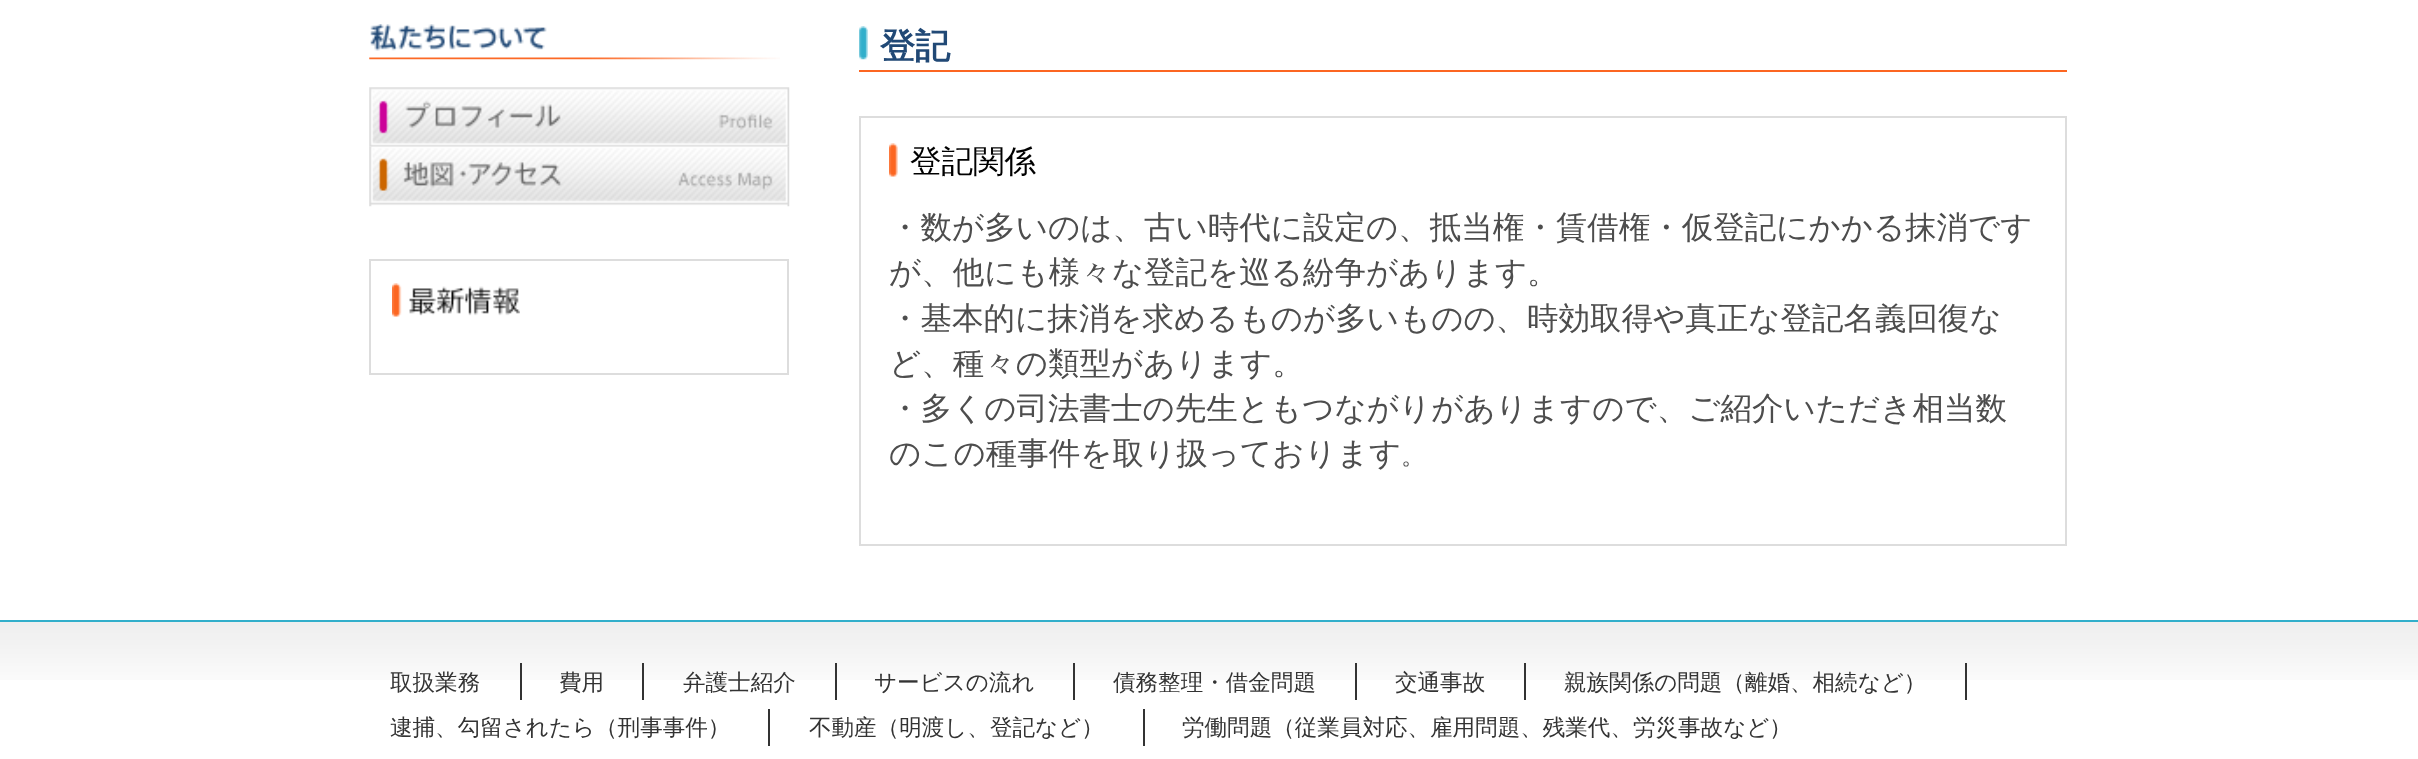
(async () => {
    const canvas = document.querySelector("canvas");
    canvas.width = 2418;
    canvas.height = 759;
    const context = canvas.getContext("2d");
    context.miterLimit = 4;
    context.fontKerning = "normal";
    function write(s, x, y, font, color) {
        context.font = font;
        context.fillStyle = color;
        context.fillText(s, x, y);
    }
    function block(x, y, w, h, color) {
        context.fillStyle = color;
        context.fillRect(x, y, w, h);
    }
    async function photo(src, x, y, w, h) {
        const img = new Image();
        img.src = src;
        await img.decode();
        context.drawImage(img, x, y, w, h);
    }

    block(0, 0, 2418, 759, "rgb(255, 255, 255)");
    await photo("media/1.png", 369, 24, 411, 36);
    await photo("media/2.png", 369, 87, 421, 60);
    await photo("media/3.png", 369, 146, 421, 61);
    context.strokeStyle = "rgb(221, 221, 221)";
    context.lineWidth = 2;
    context.strokeRect(370, 260, 418, 114);
    await photo("media/4.png", 392, 283, 128, 34);
    await photo("media/5.png", 859, 26, 9, 34);
    block(859, 70, 1208, 2, "rgb(252, 102, 33)");
    write("登記", 880, 58, "bold 35px WenQuanYi Zen Hei", "rgb(33, 73, 118)");
    context.strokeRect(860, 117, 1206, 428);
    await photo("media/6.png", 889, 143, 9, 34);
    write("登記関係", 910, 172, "500 31.5px WenQuanYi Zen Hei", "rgb(0, 0, 0)");
    write("・数が多いのは、古い時代に設定の、抵当権・賃借権・仮登記にかかる抹消です", 889, 238, "500 31.5px WenQuanYi Zen Hei", "rgb(77, 77, 77)");
    write("が、他にも様々な登記を巡る紛争があります。", 889, 283, "500 31.5px WenQuanYi Zen Hei", "rgb(77, 77, 77)");
    write("・基本的に抹消を求めるものが多いものの、時効取得や真正な登記名義回復な", 889, 329, "500 31.5px WenQuanYi Zen Hei", "rgb(77, 77, 77)");
    write("ど、種々の類型があります。", 889, 374, "500 31.5px WenQuanYi Zen Hei", "rgb(77, 77, 77)");
    write("・多くの司法書士の先生ともつながりがありますので、ご紹介いただき相当数", 889, 419, "500 31.5px WenQuanYi Zen Hei", "rgb(77, 77, 77)");
    write("のこの種事件を取り扱っております", 889, 464, "500 31.5px WenQuanYi Zen Hei", "rgb(77, 77, 77)");
    write("。", 1401, 464, "500 24px WenQuanYi Zen Hei", "rgb(77, 77, 77)");
    await photo("media/7.png", 0, 622, 2418, 58);
    block(0, 620, 2418, 2, "rgb(50, 175, 203)");
    block(520, 663, 2, 37, "rgb(51, 51, 51)");
    write("取扱業務", 390, 690, "500 22.55px WenQuanYi Zen Hei", "rgb(51, 51, 51)");
    block(642, 663, 2, 37, "rgb(51, 51, 51)");
    write("費用", 559, 690, "500 22.55px WenQuanYi Zen Hei", "rgb(51, 51, 51)");
    block(835, 663, 2, 37, "rgb(51, 51, 51)");
    write("弁護士紹介", 683, 690, "500 22.55px WenQuanYi Zen Hei", "rgb(51, 51, 51)");
    block(1073, 663, 2, 37, "rgb(51, 51, 51)");
    write("サービスの流れ", 874, 690, "500 22.55px WenQuanYi Zen Hei", "rgb(51, 51, 51)");
    block(1355, 663, 2, 37, "rgb(51, 51, 51)");
    write("債務整理・借金問題", 1113, 690, "500 22.55px WenQuanYi Zen Hei", "rgb(51, 51, 51)");
    block(1524, 663, 2, 37, "rgb(51, 51, 51)");
    write("交通事故", 1395, 690, "500 22.55px WenQuanYi Zen Hei", "rgb(51, 51, 51)");
    block(1965, 663, 2, 37, "rgb(51, 51, 51)");
    write("親族関係の問題（離婚、相続など）", 1564, 690, "500 22.55px WenQuanYi Zen Hei", "rgb(51, 51, 51)");
    block(768, 709, 2, 37, "rgb(51, 51, 51)");
    write("逮捕、勾留されたら（刑事事件）", 390, 735, "500 22.55px WenQuanYi Zen Hei", "rgb(51, 51, 51)");
    block(1143, 709, 2, 37, "rgb(51, 51, 51)");
    write("不動産（明渡し、登記など）", 809, 735, "500 22.55px WenQuanYi Zen Hei", "rgb(51, 51, 51)");
    write("労働問題（従業員対応、雇用問題、残業代、労災事故など）", 1182, 735, "500 22.55px WenQuanYi Zen Hei", "rgb(51, 51, 51)");
})();
